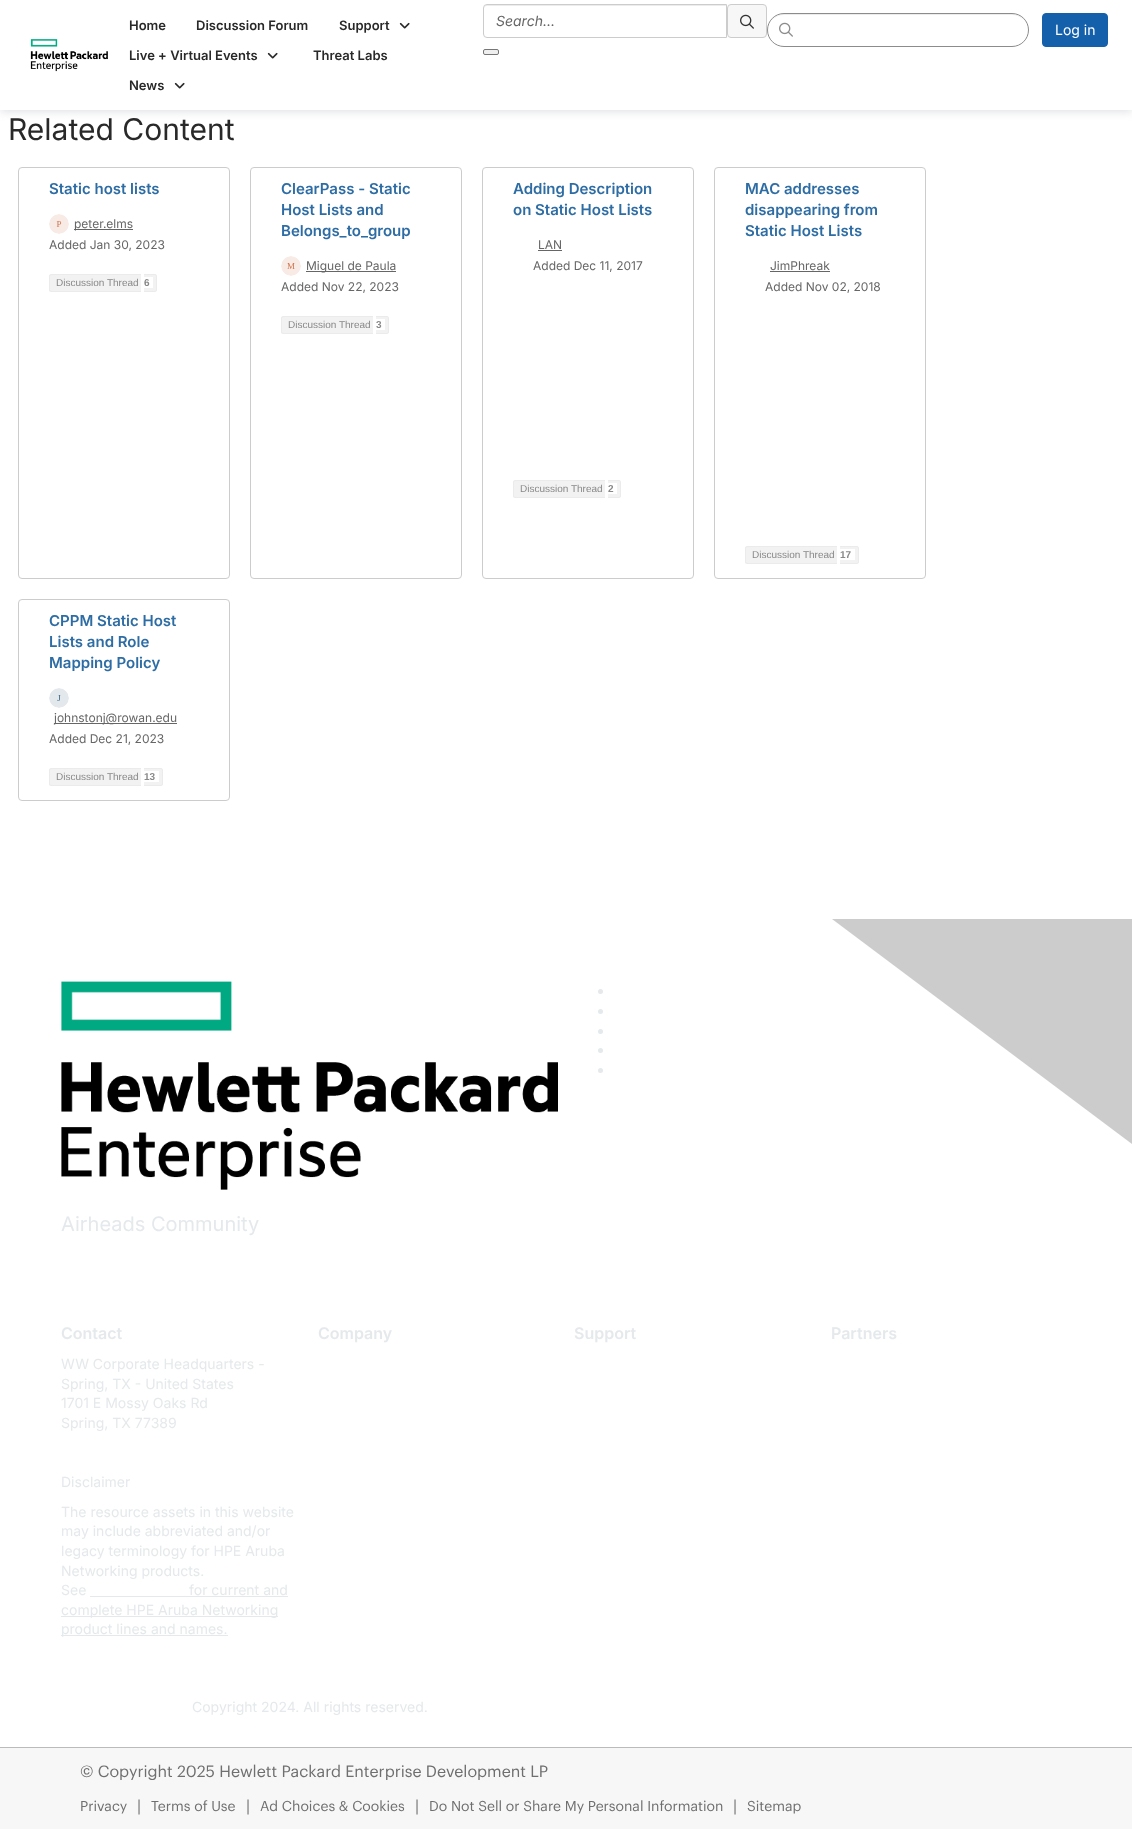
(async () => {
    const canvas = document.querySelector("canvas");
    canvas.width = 1132;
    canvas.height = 1829;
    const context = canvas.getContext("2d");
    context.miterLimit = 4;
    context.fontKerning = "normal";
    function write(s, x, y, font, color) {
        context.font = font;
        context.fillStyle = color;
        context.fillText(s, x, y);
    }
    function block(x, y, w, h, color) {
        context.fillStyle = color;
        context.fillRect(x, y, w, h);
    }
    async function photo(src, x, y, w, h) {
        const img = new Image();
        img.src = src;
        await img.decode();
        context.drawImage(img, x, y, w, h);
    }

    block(0, 0, 1132, 1829, "rgb(255, 255, 255)");
    context.fillStyle = "rgba(131, 135, 145, 0.24)";
    context.filter = "blur(4px)";
    context.beginPath();
    context.rect(0, 2, 1132, 110);
    context.fill();
    context.filter = "none";
    block(0, 0, 1132, 110, "rgb(255, 255, 255)");
    await photo("media/1.png", 30, 39, 78, 33);
    write("Home", 129, 30, "600 13px Inter", "rgb(41, 41, 41)");
    write("Discussion Forum", 196, 30, "600 13px Inter", "rgb(41, 41, 41)");
    write("Support", 339, 30, "600 13px Inter", "rgb(41, 41, 41)");
    await photo("media/2.png", 399, 22, 11, 7);
    write("Live + Virtual Events", 129, 60, "600 13px Inter", "rgb(41, 41, 41)");
    await photo("media/2.png", 267, 52, 11, 7);
    write("Threat Labs", 313, 60, "600 13px Inter", "rgb(41, 41, 41)");
    write("News", 129, 90, "600 13px Inter", "rgb(41, 41, 41)");
    await photo("media/2.png", 174, 82, 11, 7);
    context.fillStyle = "rgb(236, 236, 236)";
    context.beginPath();
    context.moveTo(487, 6);
    context.lineTo(726, 6);
    context.lineTo(726, 5);
    context.lineTo(487, 5);
    context.bezierCurveTo(485, 5, 484, 7, 484, 9);
    context.bezierCurveTo(484, 7, 485, 6, 487, 6);
    context.closePath();
    context.fill();
    context.beginPath();
    context.roundRect(483.5, 4.5, 243, 33, [3.5, 0, 0, 3.5]);
    context.strokeStyle = "rgb(204, 204, 204)";
    context.stroke();
    write("Search...", 496, 26, "italic 14px Inter", "rgb(102, 102, 102)");
    context.fillStyle = "rgb(247, 247, 247)";
    context.beginPath();
    context.roundRect(727.5, 4.5, 39, 33, 3.5);
    context.fill();
    context.stroke();
    await photo("media/3.png", 740, 14, 14, 15);
    context.fillStyle = "rgb(239, 239, 239)";
    context.beginPath();
    context.roundRect(483.5, 49.5, 15, 5, 1.5);
    context.fill();
    context.strokeStyle = "rgb(118, 118, 118)";
    context.stroke();
    context.fillStyle = "rgb(236, 236, 236)";
    context.beginPath();
    context.moveTo(784, 15);
    context.lineTo(1012, 15);
    context.bezierCurveTo(1021, 15, 1028, 22, 1028, 30);
    context.bezierCurveTo(1028, 22, 1021, 14, 1012, 14);
    context.lineTo(784, 14);
    context.bezierCurveTo(775, 14, 768, 22, 768, 30);
    context.bezierCurveTo(768, 22, 775, 15, 784, 15);
    context.closePath();
    context.fill();
    context.beginPath();
    context.roundRect(767.5, 13.5, 261, 33, 16.5);
    context.strokeStyle = "rgb(140, 140, 140)";
    context.stroke();
    await photo("media/4.png", 779, 22, 14, 15);
    context.fillStyle = "rgb(20, 96, 170)";
    context.beginPath();
    context.roundRect(1042.5, 13.5, 65, 33, 3.5);
    context.fill();
    context.strokeStyle = "rgb(20, 96, 170)";
    context.stroke();
    write("Log in", 1055, 35, "14px Inter", "rgb(255, 255, 255)");
    write("Related Content", 8, 140, "30px Inter", "rgb(41, 41, 41)");
    context.beginPath();
    context.roundRect(18.5, 167.5, 211, 411, 3.5);
    context.strokeStyle = "rgb(204, 204, 204)";
    context.stroke();
    write("Static host lists", 49, 194, "600 15px Inter", "rgb(46, 109, 164)");
    await photo("media/5.png", 49, 214, 20, 20);
    block(74, 229, 59, 1, "rgb(102, 102, 102)");
    write("peter.elms", 74, 228, "12px Inter", "rgb(102, 102, 102)");
    write("Added Jan 30, 2023", 49, 249, "12px Inter", "rgb(102, 102, 102)");
    context.fillStyle = "rgb(242, 242, 242)";
    context.beginPath();
    context.roundRect(49, 274, 92, 18, [2.5, 0, 0, 2.5]);
    context.fill();
    context.fillStyle = "rgb(235, 235, 235)";
    context.beginPath();
    context.moveTo(52, 274);
    context.lineTo(141, 274);
    context.lineTo(141, 292);
    context.lineTo(52, 292);
    context.bezierCurveTo(50, 292, 49, 291, 49, 290);
    context.lineTo(49, 276);
    context.bezierCurveTo(49, 275, 50, 274, 52, 274);
    context.closePath();
    context.moveTo(52, 275);
    context.lineTo(141, 275);
    context.lineTo(141, 291);
    context.lineTo(52, 291);
    context.bezierCurveTo(51, 291, 50, 290, 50, 290);
    context.lineTo(50, 276);
    context.bezierCurveTo(50, 276, 51, 275, 52, 275);
    context.closePath();
    context.fill("evenodd");
    write("Discussion Thread", 56, 286, "10px Liberation Sans", "rgb(136, 136, 136)");
    context.fillStyle = "rgb(242, 242, 242)";
    context.beginPath();
    context.roundRect(144, 274, 13, 18, [0, 2.5, 2.5, 0]);
    context.fill();
    context.fillStyle = "rgb(235, 235, 235)";
    context.beginPath();
    context.moveTo(144, 274);
    context.lineTo(154.5, 274);
    context.bezierCurveTo(156, 274, 157, 275, 157, 276.5);
    context.lineTo(157, 289.5);
    context.bezierCurveTo(157, 291, 156, 292, 154.5, 292);
    context.lineTo(144, 292);
    context.closePath();
    context.moveTo(144, 275);
    context.lineTo(154.5, 275);
    context.bezierCurveTo(155.5, 275, 156, 275.5, 156, 276.5);
    context.lineTo(156, 289.5);
    context.bezierCurveTo(156, 290.5, 155.5, 291, 154.5, 291);
    context.lineTo(144, 291);
    context.closePath();
    context.fill("evenodd");
    block(144, 277, 9, 11, "rgb(255, 255, 255)");
    write("6", 144, 286, "bold 10px Liberation Sans", "rgb(136, 136, 136)");
    context.beginPath();
    context.roundRect(250.5, 167.5, 211, 411, 3.5);
    context.stroke();
    write("ClearPass - Static", 281, 194, "600 15px Inter", "rgb(46, 109, 164)");
    write("Host Lists and", 281, 215, "600 15px Inter", "rgb(46, 109, 164)");
    write("Belongs_to_group", 281, 236, "600 15px Inter", "rgb(46, 109, 164)");
    await photo("media/6.png", 281, 256, 20, 20);
    block(306, 271, 90, 1, "rgb(102, 102, 102)");
    write("Miguel de Paula", 306, 270, "12px Inter", "rgb(102, 102, 102)");
    write("Added Nov 22, 2023", 281, 291, "12px Inter", "rgb(102, 102, 102)");
    context.fillStyle = "rgb(242, 242, 242)";
    context.beginPath();
    context.roundRect(281, 316, 92, 18, [2.5, 0, 0, 2.5]);
    context.fill();
    context.fillStyle = "rgb(235, 235, 235)";
    context.beginPath();
    context.moveTo(284, 316);
    context.lineTo(373, 316);
    context.lineTo(373, 334);
    context.lineTo(284, 334);
    context.bezierCurveTo(282, 334, 281, 333, 281, 332);
    context.lineTo(281, 318);
    context.bezierCurveTo(281, 317, 282, 316, 284, 316);
    context.closePath();
    context.moveTo(284, 317);
    context.lineTo(373, 317);
    context.lineTo(373, 333);
    context.lineTo(284, 333);
    context.bezierCurveTo(283, 333, 282, 332, 282, 332);
    context.lineTo(282, 318);
    context.bezierCurveTo(282, 318, 283, 317, 284, 317);
    context.closePath();
    context.fill("evenodd");
    write("Discussion Thread", 288, 328, "10px Liberation Sans", "rgb(136, 136, 136)");
    context.fillStyle = "rgb(242, 242, 242)";
    context.beginPath();
    context.roundRect(376, 316, 13, 18, [0, 2.5, 2.5, 0]);
    context.fill();
    context.fillStyle = "rgb(235, 235, 235)";
    context.beginPath();
    context.moveTo(376, 316);
    context.lineTo(386.5, 316);
    context.bezierCurveTo(388, 316, 389, 317, 389, 318.5);
    context.lineTo(389, 331.5);
    context.bezierCurveTo(389, 333, 388, 334, 386.5, 334);
    context.lineTo(376, 334);
    context.closePath();
    context.moveTo(376, 317);
    context.lineTo(386.5, 317);
    context.bezierCurveTo(387.5, 317, 388, 317.5, 388, 318.5);
    context.lineTo(388, 331.5);
    context.bezierCurveTo(388, 332.5, 387.5, 333, 386.5, 333);
    context.lineTo(376, 333);
    context.closePath();
    context.fill("evenodd");
    block(376, 319, 9, 11, "rgb(255, 255, 255)");
    write("3", 376, 328, "bold 10px Liberation Sans", "rgb(136, 136, 136)");
    context.beginPath();
    context.roundRect(482.5, 167.5, 211, 411, 3.5);
    context.stroke();
    write("Adding Description", 513, 194, "600 15px Inter", "rgb(46, 109, 164)");
    write("on Static Host Lists", 513, 215, "600 15px Inter", "rgb(46, 109, 164)");
    write("LAN", 538, 249, "12px Inter", "rgb(102, 102, 102)");
    block(538, 250, 24, 1, "rgb(102, 102, 102)");
    write("Added Dec 11, 2017", 533, 270, "12px Inter", "rgb(102, 102, 102)");
    context.fillStyle = "rgb(242, 242, 242)";
    context.beginPath();
    context.roundRect(513, 480, 92, 18, [2.5, 0, 0, 2.5]);
    context.fill();
    context.fillStyle = "rgb(235, 235, 235)";
    context.beginPath();
    context.moveTo(516, 480);
    context.lineTo(605, 480);
    context.lineTo(605, 498);
    context.lineTo(516, 498);
    context.bezierCurveTo(514, 498, 513, 497, 513, 496);
    context.lineTo(513, 482);
    context.bezierCurveTo(513, 481, 514, 480, 516, 480);
    context.closePath();
    context.moveTo(516, 481);
    context.lineTo(605, 481);
    context.lineTo(605, 497);
    context.lineTo(516, 497);
    context.bezierCurveTo(515, 497, 514, 496, 514, 496);
    context.lineTo(514, 482);
    context.bezierCurveTo(514, 482, 515, 481, 516, 481);
    context.closePath();
    context.fill("evenodd");
    write("Discussion Thread", 520, 492, "10px Liberation Sans", "rgb(136, 136, 136)");
    context.fillStyle = "rgb(242, 242, 242)";
    context.beginPath();
    context.roundRect(608, 480, 13, 18, [0, 2.5, 2.5, 0]);
    context.fill();
    context.fillStyle = "rgb(235, 235, 235)";
    context.beginPath();
    context.moveTo(608, 480);
    context.lineTo(618.5, 480);
    context.bezierCurveTo(620, 480, 621, 481, 621, 482.5);
    context.lineTo(621, 495.5);
    context.bezierCurveTo(621, 497, 620, 498, 618.5, 498);
    context.lineTo(608, 498);
    context.closePath();
    context.moveTo(608, 481);
    context.lineTo(618.5, 481);
    context.bezierCurveTo(619.5, 481, 620, 481.5, 620, 482.5);
    context.lineTo(620, 495.5);
    context.bezierCurveTo(620, 496.5, 619.5, 497, 618.5, 497);
    context.lineTo(608, 497);
    context.closePath();
    context.fill("evenodd");
    block(608, 483, 9, 11, "rgb(255, 255, 255)");
    write("2", 608, 492, "bold 10px Liberation Sans", "rgb(136, 136, 136)");
    context.beginPath();
    context.roundRect(714.5, 167.5, 211, 411, 3.5);
    context.stroke();
    write("MAC addresses", 745, 194, "600 15px Inter", "rgb(46, 109, 164)");
    write("disappearing from", 745, 215, "600 15px Inter", "rgb(46, 109, 164)");
    write("Static Host Lists", 745, 236, "600 15px Inter", "rgb(46, 109, 164)");
    write("JimPhreak", 770, 270, "12px Inter", "rgb(102, 102, 102)");
    block(770, 271, 60, 1, "rgb(102, 102, 102)");
    write("Added Nov 02, 2018", 765, 291, "12px Inter", "rgb(102, 102, 102)");
    context.fillStyle = "rgb(242, 242, 242)";
    context.beginPath();
    context.roundRect(745, 546, 92, 18, [2.5, 0, 0, 2.5]);
    context.fill();
    context.fillStyle = "rgb(235, 235, 235)";
    context.beginPath();
    context.moveTo(748, 546);
    context.lineTo(837, 546);
    context.lineTo(837, 564);
    context.lineTo(748, 564);
    context.bezierCurveTo(746, 564, 745, 563, 745, 562);
    context.lineTo(745, 548);
    context.bezierCurveTo(745, 547, 746, 546, 748, 546);
    context.closePath();
    context.moveTo(748, 547);
    context.lineTo(837, 547);
    context.lineTo(837, 563);
    context.lineTo(748, 563);
    context.bezierCurveTo(747, 563, 746, 562, 746, 562);
    context.lineTo(746, 548);
    context.bezierCurveTo(746, 548, 747, 547, 748, 547);
    context.closePath();
    context.fill("evenodd");
    write("Discussion Thread", 752, 558, "10px Liberation Sans", "rgb(136, 136, 136)");
    context.fillStyle = "rgb(242, 242, 242)";
    context.beginPath();
    context.roundRect(840, 546, 19, 18, [0, 2.5, 2.5, 0]);
    context.fill();
    context.fillStyle = "rgb(235, 235, 235)";
    context.beginPath();
    context.moveTo(840, 546);
    context.lineTo(856.5, 546);
    context.bezierCurveTo(858, 546, 859, 547, 859, 548.5);
    context.lineTo(859, 561.5);
    context.bezierCurveTo(859, 563, 858, 564, 856.5, 564);
    context.lineTo(840, 564);
    context.closePath();
    context.moveTo(840, 547);
    context.lineTo(856.5, 547);
    context.bezierCurveTo(857.5, 547, 858, 547.5, 858, 548.5);
    context.lineTo(858, 561.5);
    context.bezierCurveTo(858, 562.5, 857.5, 563, 856.5, 563);
    context.lineTo(840, 563);
    context.closePath();
    context.fill("evenodd");
    block(840, 549, 15, 11, "rgb(255, 255, 255)");
    write("17", 840, 558, "bold 10px Liberation Sans", "rgb(136, 136, 136)");
    context.beginPath();
    context.roundRect(18.5, 599.5, 211, 201, 3.5);
    context.stroke();
    write("CPPM Static Host", 49, 626, "600 15px Inter", "rgb(46, 109, 164)");
    write("Lists and Role", 49, 647, "600 15px Inter", "rgb(46, 109, 164)");
    write("Mapping Policy", 49, 668, "600 15px Inter", "rgb(46, 109, 164)");
    await photo("media/7.png", 49, 688, 20, 20);
    block(54, 723, 123, 1, "rgb(102, 102, 102)");
    write("johnstonj@rowan.edu", 54, 722, "12px Inter", "rgb(102, 102, 102)");
    write("Added Dec 21, 2023", 49, 743, "12px Inter", "rgb(102, 102, 102)");
    context.fillStyle = "rgb(242, 242, 242)";
    context.beginPath();
    context.roundRect(49, 768, 92, 18, [2.5, 0, 0, 2.5]);
    context.fill();
    context.fillStyle = "rgb(235, 235, 235)";
    context.beginPath();
    context.moveTo(52, 768);
    context.lineTo(141, 768);
    context.lineTo(141, 786);
    context.lineTo(52, 786);
    context.bezierCurveTo(50, 786, 49, 785, 49, 784);
    context.lineTo(49, 770);
    context.bezierCurveTo(49, 769, 50, 768, 52, 768);
    context.closePath();
    context.moveTo(52, 769);
    context.lineTo(141, 769);
    context.lineTo(141, 785);
    context.lineTo(52, 785);
    context.bezierCurveTo(51, 785, 50, 784, 50, 784);
    context.lineTo(50, 770);
    context.bezierCurveTo(50, 770, 51, 769, 52, 769);
    context.closePath();
    context.fill("evenodd");
    write("Discussion Thread", 56, 780, "10px Liberation Sans", "rgb(136, 136, 136)");
    context.fillStyle = "rgb(242, 242, 242)";
    context.beginPath();
    context.roundRect(144, 768, 19, 18, [0, 2.5, 2.5, 0]);
    context.fill();
    context.fillStyle = "rgb(235, 235, 235)";
    context.beginPath();
    context.moveTo(144, 768);
    context.lineTo(160.5, 768);
    context.bezierCurveTo(162, 768, 163, 769, 163, 770.5);
    context.lineTo(163, 783.5);
    context.bezierCurveTo(163, 785, 162, 786, 160.5, 786);
    context.lineTo(144, 786);
    context.closePath();
    context.moveTo(144, 769);
    context.lineTo(160.5, 769);
    context.bezierCurveTo(161.5, 769, 162, 769.5, 162, 770.5);
    context.lineTo(162, 783.5);
    context.bezierCurveTo(162, 784.5, 161.5, 785, 160.5, 785);
    context.lineTo(144, 785);
    context.closePath();
    context.fill("evenodd");
    block(144, 771, 15, 11, "rgb(255, 255, 255)");
    write("13", 144, 780, "bold 10px Liberation Sans", "rgb(136, 136, 136)");
    context.fillStyle = "rgb(204, 204, 204)";
    context.beginPath();
    context.moveTo(1132, 919);
    context.lineTo(1132, 1144);
    context.lineTo(832, 919);
    context.closePath();
    context.fill();
    context.fillStyle = "rgb(229, 233, 235)";
    context.beginPath();
    context.arc(600.5, 991.5, 2.5, 0, Math.PI * 2);
    context.fill();
    context.beginPath();
    context.arc(600.5, 1011.5, 2.5, 0, Math.PI * 2);
    context.fill();
    context.beginPath();
    context.arc(600.5, 1031.5, 2.5, 0, Math.PI * 2);
    context.fill();
    context.beginPath();
    context.arc(600.5, 1050.5, 2.5, 0, Math.PI * 2);
    context.fill();
    context.beginPath();
    context.arc(600.5, 1070.5, 2.5, 0, Math.PI * 2);
    context.fill();
    await photo("media/8.png", 61, 981, 497, 209);
    write("Airheads Community", 61, 1231, "20px Inter", "rgb(229, 233, 235)");
    write("Contact", 61, 1339, "600 16px Inter", "rgb(229, 233, 235)");
    write("WW Corporate Headquarters -", 61, 1369, "14px Inter", "rgb(229, 233, 235)");
    write("Spring, TX - United States", 61, 1389, "14px Inter", "rgb(229, 233, 235)");
    write("1701 E Mossy Oaks Rd", 61, 1408, "14px Inter", "rgb(229, 233, 235)");
    write("Spring, TX 77389", 61, 1428, "14px Inter", "rgb(229, 233, 235)");
    write("Disclaimer", 61, 1487, "14px Inter", "rgb(229, 233, 235)");
    write("The resource assets in this website", 61, 1517, "14px Inter", "rgb(229, 233, 235)");
    write("may include abbreviated and/or", 61, 1536, "14px Inter", "rgb(229, 233, 235)");
    write("legacy terminology for HPE Aruba", 61, 1556, "14px Inter", "rgb(229, 233, 235)");
    write("Networking products.", 61, 1576, "14px Inter", "rgb(229, 233, 235)");
    write("See", 61, 1595, "14px Inter", "rgb(229, 233, 235)");
    write("for current and", 189, 1595, "14px Inter", "rgb(229, 233, 235)");
    block(90, 1596, 198, 1, "rgb(229, 233, 235)");
    block(61, 1616, 217, 1, "rgb(229, 233, 235)");
    write("complete HPE Aruba Networking", 61, 1615, "14px Inter", "rgb(229, 233, 235)");
    block(61, 1635, 167, 1, "rgb(229, 233, 235)");
    write("product lines and names.", 61, 1634, "14px Inter", "rgb(229, 233, 235)");
    write("Company", 318, 1339, "600 16px Inter", "rgb(229, 233, 235)");
    write("Support", 574, 1339, "600 16px Inter", "rgb(229, 233, 235)");
    write("Partners", 831, 1339, "600 16px Inter", "rgb(229, 233, 235)");
    write("Copyright 2024. All rights reserved.", 192, 1712, "14px Inter", "rgb(229, 233, 235)");
    block(0, 1748, 1132, 81, "rgb(247, 247, 247)");
    block(0, 1747, 1132, 1, "rgb(187, 187, 187)");
    write("© Copyright 2025 Hewlett Packard Enterprise Development LP", 80, 1777, "16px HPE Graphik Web", "rgb(111, 111, 111)");
    write("Privacy", 80, 1811, "14px HPE Graphik Web", "rgb(111, 111, 111)");
    write("|", 137, 1812, "16px HPE Graphik Web", "rgb(111, 111, 111)");
    write("Terms of Use", 151, 1811, "14px HPE Graphik Web", "rgb(111, 111, 111)");
    write("|", 246, 1812, "16px HPE Graphik Web", "rgb(111, 111, 111)");
    write("Ad Choices & Cookies", 260, 1811, "14px HPE Graphik Web", "rgb(111, 111, 111)");
    write("|", 415, 1812, "16px HPE Graphik Web", "rgb(111, 111, 111)");
    write("Do Not Sell or Share My Personal Information", 429, 1811, "14px HPE Graphik Web", "rgb(111, 111, 111)");
    write("|", 733, 1812, "16px HPE Graphik Web", "rgb(111, 111, 111)");
    write("Sitemap", 747, 1811, "14px HPE Graphik Web", "rgb(111, 111, 111)");
})();
